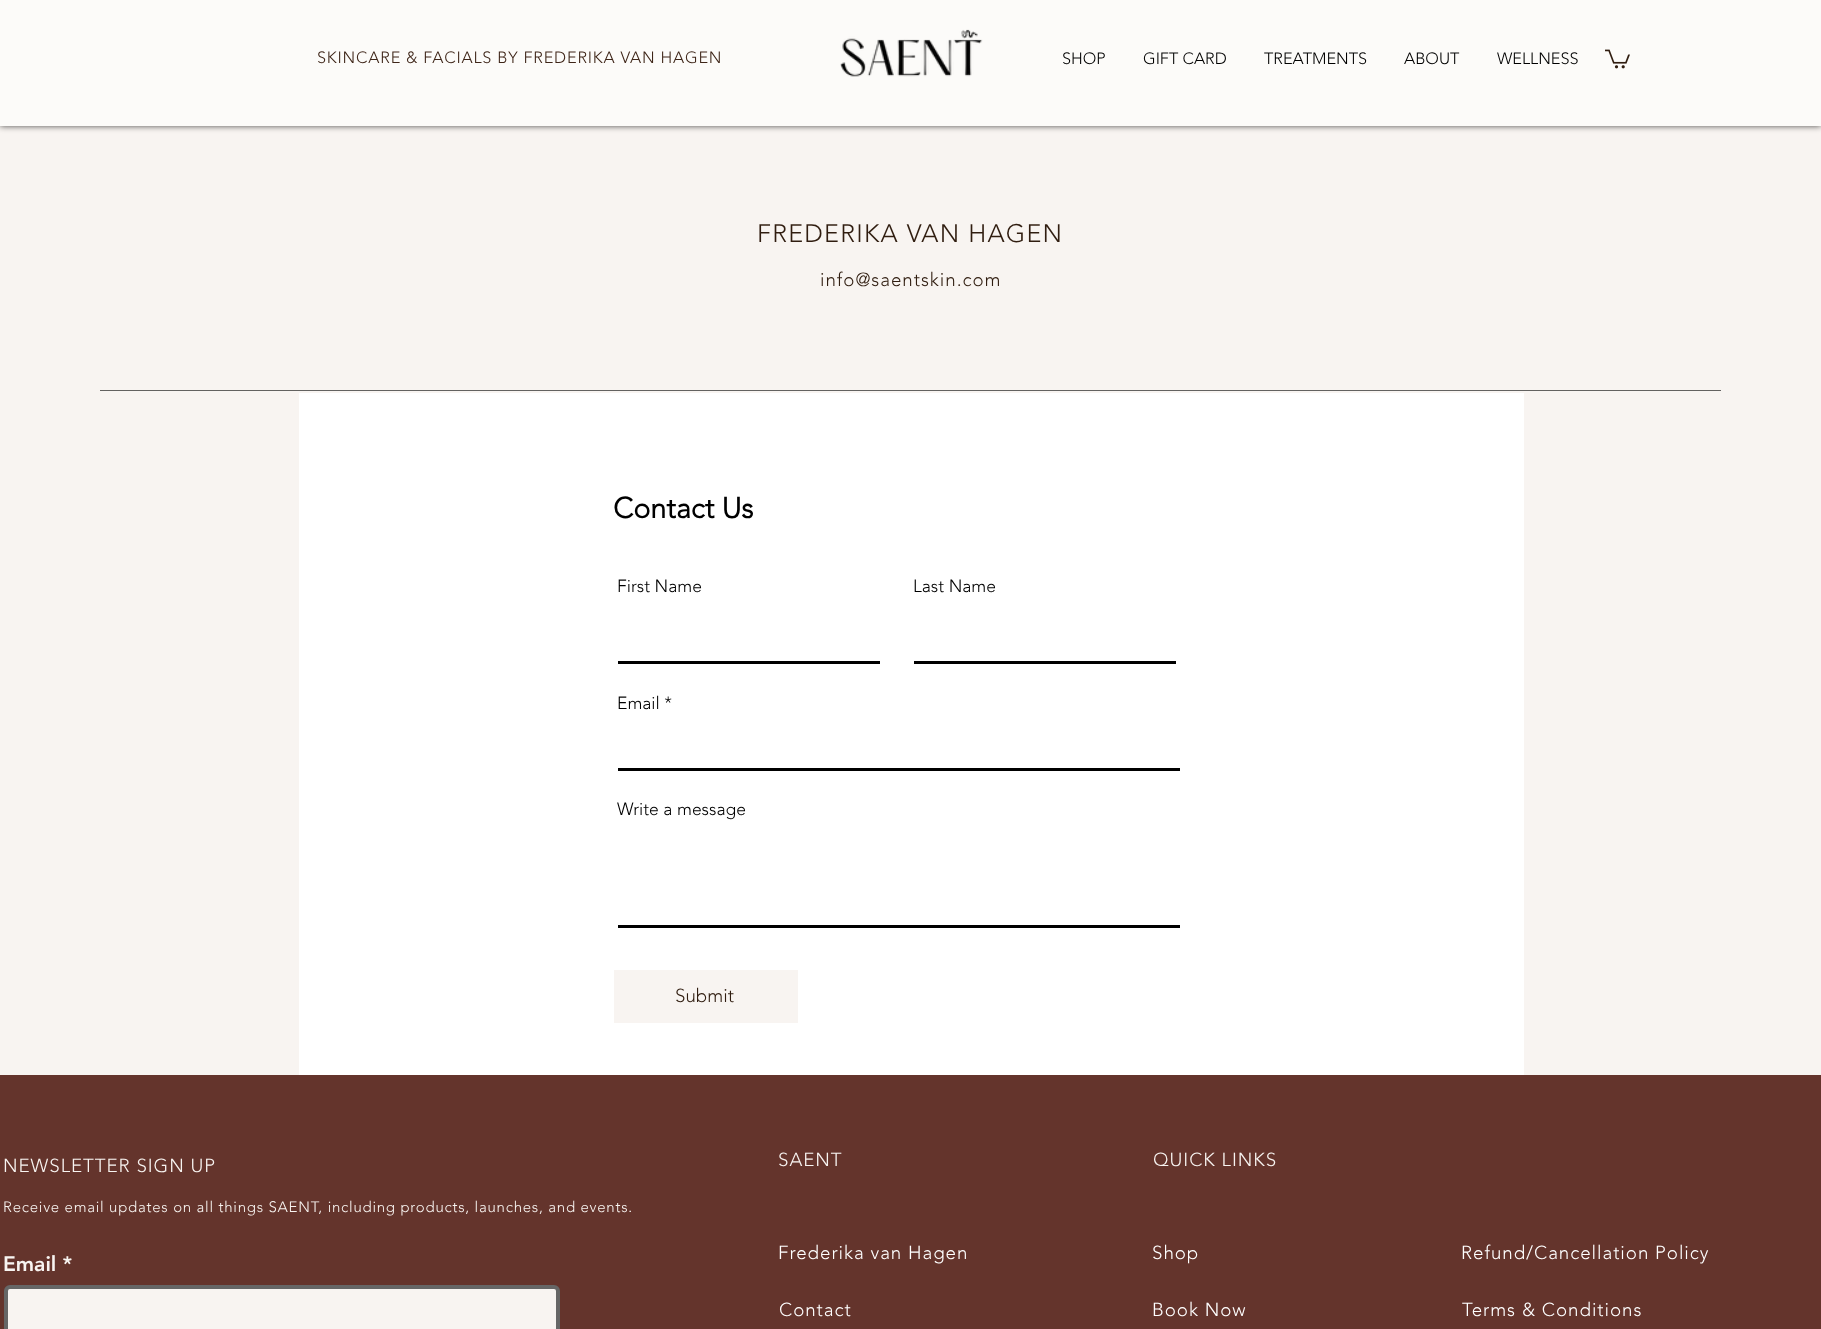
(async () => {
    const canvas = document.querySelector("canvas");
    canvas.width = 1821;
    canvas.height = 1329;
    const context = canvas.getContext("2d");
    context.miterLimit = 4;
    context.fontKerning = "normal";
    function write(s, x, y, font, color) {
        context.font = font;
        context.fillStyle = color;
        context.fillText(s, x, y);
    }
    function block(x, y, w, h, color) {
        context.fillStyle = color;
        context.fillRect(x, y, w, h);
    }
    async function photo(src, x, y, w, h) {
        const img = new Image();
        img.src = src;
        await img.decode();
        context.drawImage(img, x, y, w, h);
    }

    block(0, 0, 1821, 1329, "rgb(248, 244, 241)");
    context.fillStyle = "rgba(0, 0, 0, 0.7)";
    context.filter = "blur(3px)";
    context.beginPath();
    context.rect(0, 0, 1821, 126);
    context.fill();
    context.filter = "none";
    block(0, 0, 1821, 126, "rgb(252, 251, 249)");
    context.letterSpacing = "0.8px";
    write("SKINCARE & FACIALS BY FREDERIKA VAN HAGEN", 317, 63, "300 16.25px 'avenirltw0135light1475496'", "rgb(62, 37, 24)");
    await photo("media/1.png", 840, 29, 143, 48);
    context.letterSpacing = "0px";
    write("SHOP", 1062, 64, "300 16.25px 'avenirltw0135light1475496'", "rgb(0, 0, 0)");
    write("GIFT CARD", 1143, 64, "300 16.25px 'avenirltw0135light1475496'", "rgb(0, 0, 0)");
    write("TREATMENTS", 1264, 64, "300 16.25px 'avenirltw0135light1475496'", "rgb(0, 0, 0)");
    write("ABOUT", 1404, 64, "300 16.25px 'avenirltw0135light1475496'", "rgb(0, 0, 0)");
    write("WELLNESS", 1497, 64, "300 16.25px 'avenirltw0135light1475496'", "rgb(0, 0, 0)");
    await photo("media/2.png", 1605, 49, 25, 20);
    context.letterSpacing = "1.25px";
    write("FREDERIKA VAN HAGEN", 757, 242, "300 25px 'avenirltw0135light1475496'", "rgb(48, 29, 16)");
    context.letterSpacing = "0.95px";
    write("info@saentskin.com", 820, 286, "300 18.75px 'avenirltw0135light1475496'", "rgb(48, 29, 16)");
    block(100, 390, 1621, 1, "rgb(99, 98, 96)");
    block(299, 393, 1225, 682, "rgb(255, 255, 255)");
    context.letterSpacing = "0px";
    write("Contact Us", 613, 518, "bold 28.75px 'avenirltw0135light1475496'", "rgb(0, 0, 0)");
    write("First Name", 617, 592, "300 17.5px 'avenirltw0135light1475496'", "rgb(0, 0, 0)");
    block(618, 661, 262, 3, "rgb(0, 0, 0)");
    write("Last Name", 913, 592, "300 17.5px 'avenirltw0135light1475496'", "rgb(0, 0, 0)");
    block(914, 661, 262, 3, "rgb(0, 0, 0)");
    write("Email *", 617, 709, "300 17.5px 'avenirltw0135light1475496'", "rgb(0, 0, 0)");
    block(618, 768, 562, 3, "rgb(0, 0, 0)");
    write("Write a message", 617, 815, "300 17.5px 'avenirltw0135light1475496'", "rgb(0, 0, 0)");
    block(618, 925, 562, 3, "rgb(0, 0, 0)");
    block(614, 970, 184, 53, "rgb(248, 244, 241)");
    write("Submit", 675, 1002, "300 18.75px 'avenirltw0135light1475496'", "rgb(48, 29, 16)");
    block(0, 1075, 1821, 254, "rgb(100, 52, 44)");
    context.letterSpacing = "0.95px";
    write("NEWSLETTER SIGN UP", 3, 1172, "300 18.75px 'avenirltw0135light1475496'", "rgb(248, 244, 241)");
    context.letterSpacing = "0.75px";
    write("Receive email updates on all things SAENT, including products, launches, and events.", 3, 1212, "300 15px 'avenirltw0135light1475496'", "rgb(248, 244, 241)");
    context.letterSpacing = "0px";
    write("Email *", 3, 1271, "900 21px 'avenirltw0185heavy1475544'", "rgb(248, 244, 241)");
    context.beginPath();
    context.roundRect(6, 1287, 552, 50, 4);
    context.fill();
    context.strokeStyle = "rgb(102, 102, 102)";
    context.lineWidth = 4;
    context.stroke();
    context.letterSpacing = "0.95px";
    write("SAENT", 778, 1166, "300 18.75px 'avenirltw0135light1475496'", "rgb(248, 244, 241)");
    write("QUICK LINKS", 1153, 1166, "300 18.75px 'avenirltw0135light1475496'", "rgb(248, 244, 241)");
    write("Frederika van Hagen", 778, 1259, "300 18.75px 'avenirltw0135light1475496'", "rgb(255, 255, 255)");
    write("Shop", 1152, 1259, "300 18.75px 'avenirltw0135light1475496'", "rgb(255, 255, 255)");
    write("Refund/Cancellation Policy", 1461, 1259, "300 18.75px 'avenirltw0135light1475496'", "rgb(255, 255, 255)");
    write("Contact", 779, 1316, "300 18.75px 'avenirltw0135light1475496'", "rgb(255, 255, 255)");
    write("Book Now", 1152, 1316, "300 18.75px 'avenirltw0135light1475496'", "rgb(255, 255, 255)");
    write("Terms & Conditions", 1462, 1316, "300 18.75px 'avenirltw0135light1475496'", "rgb(255, 255, 255)");
})();
